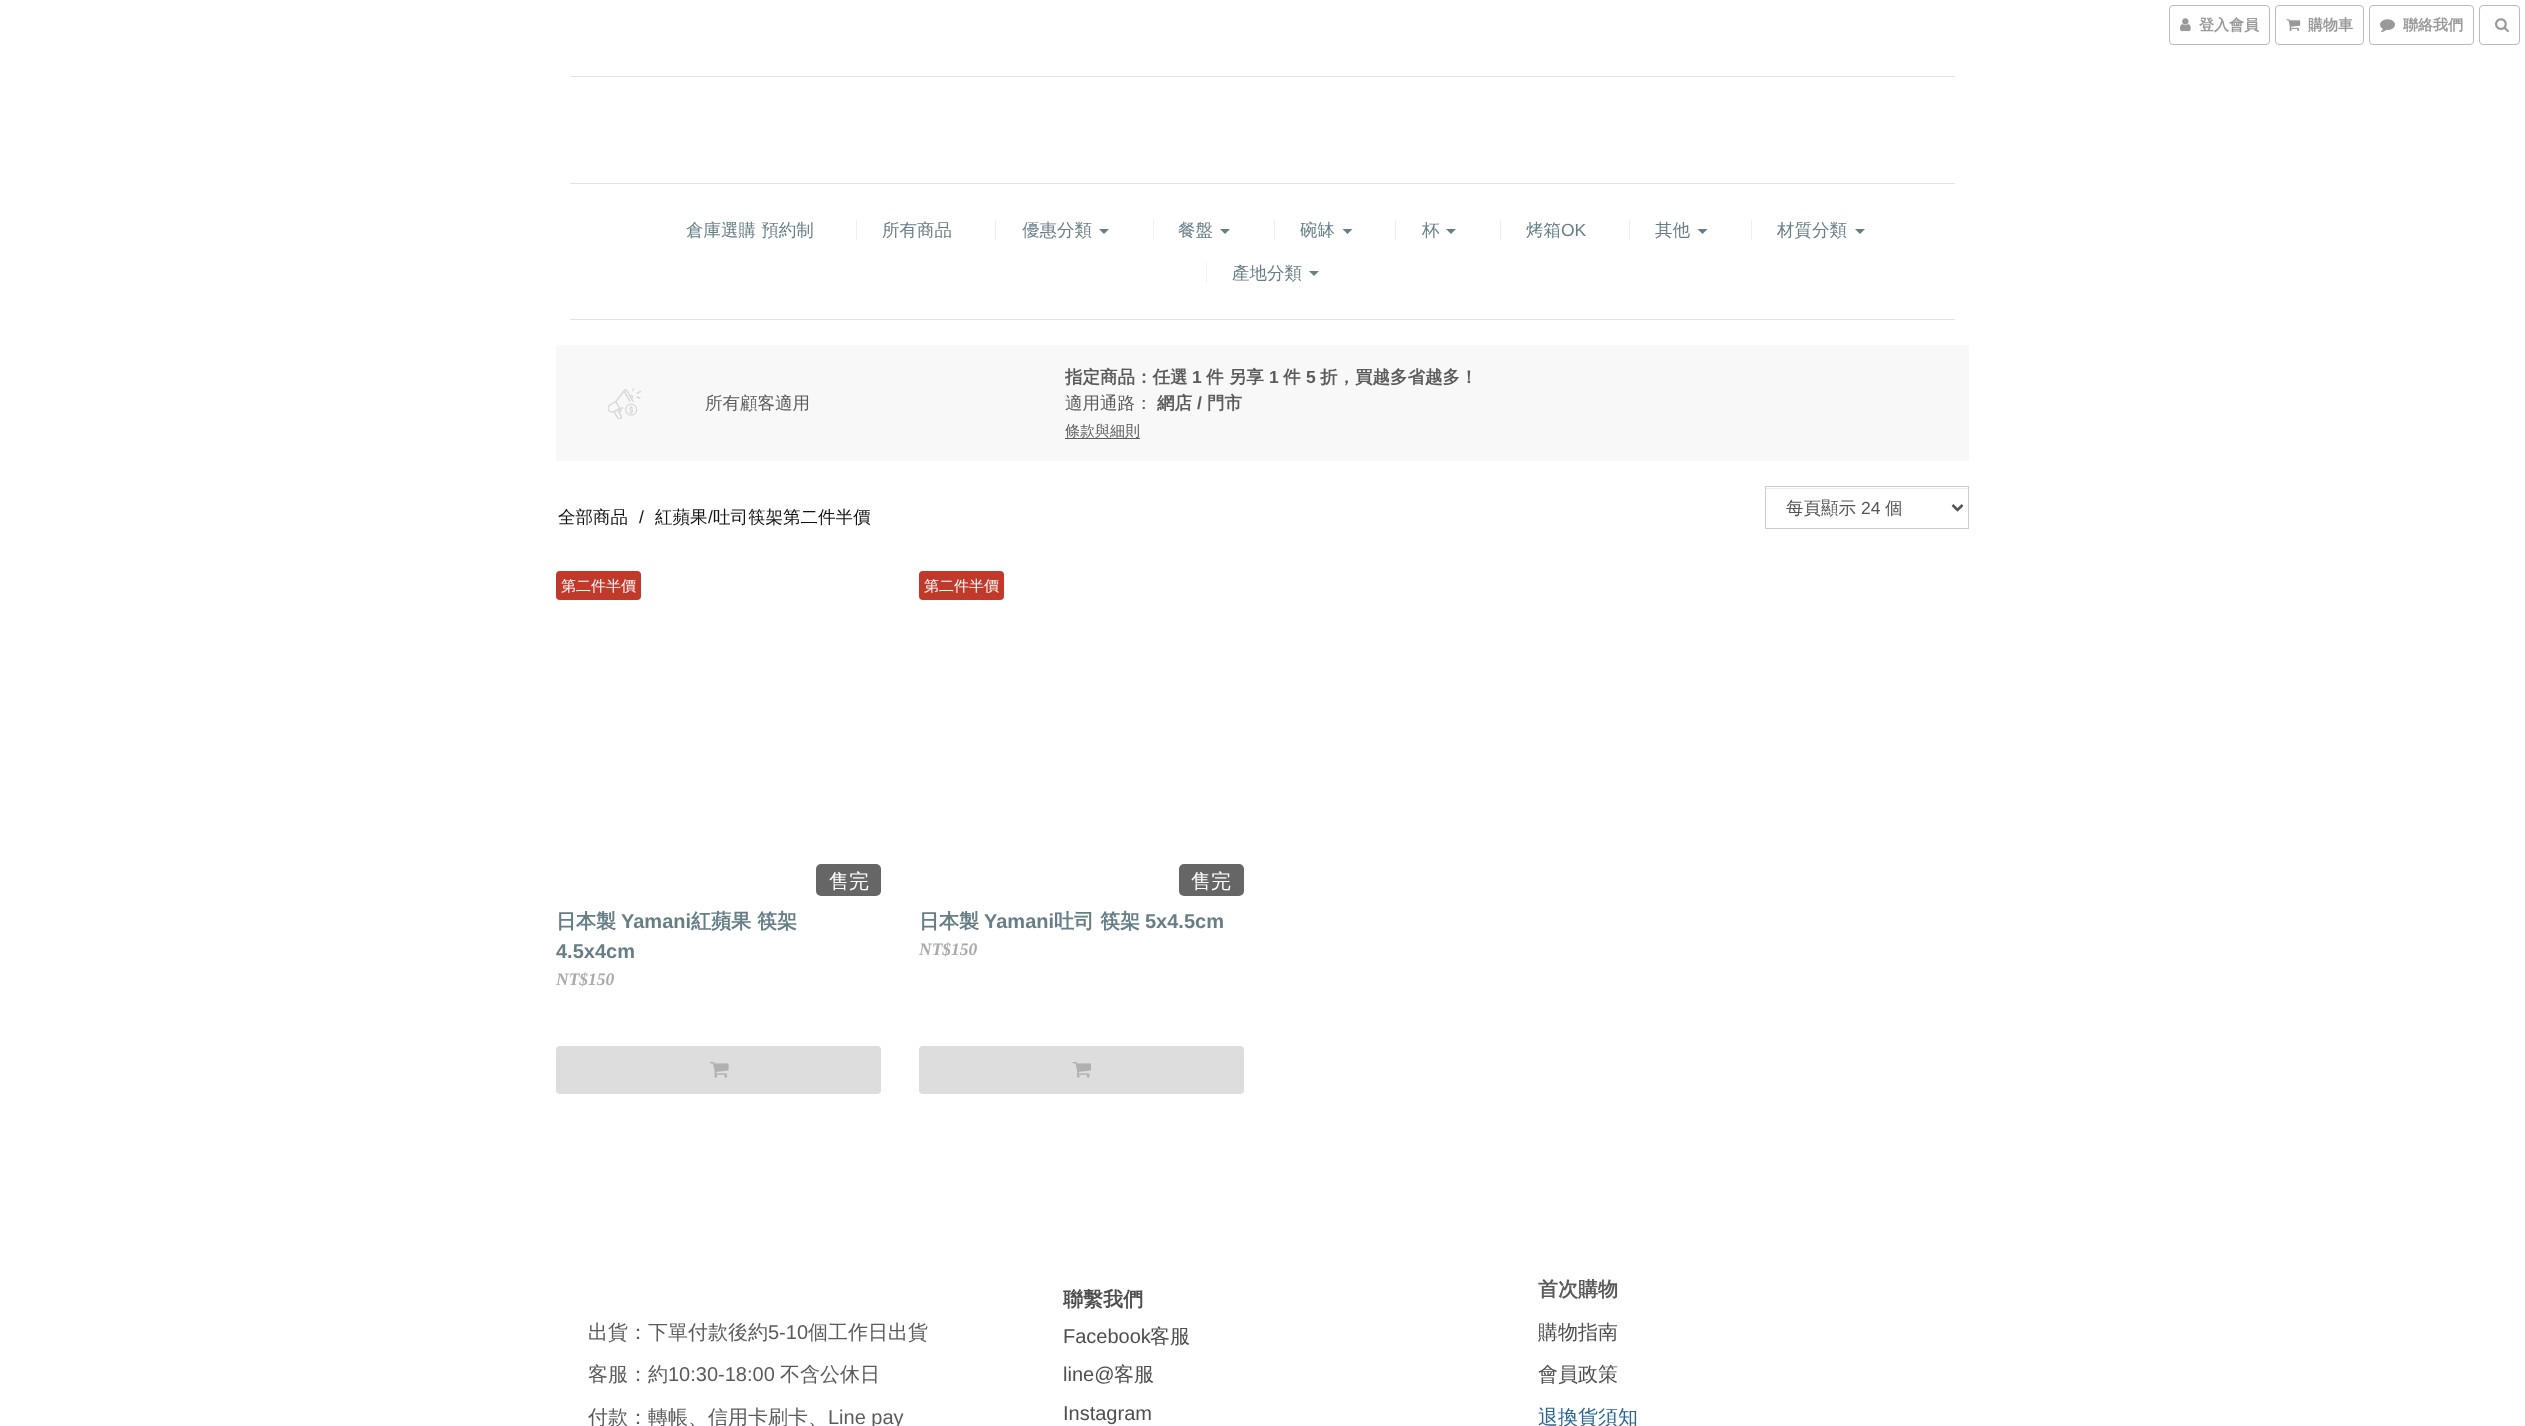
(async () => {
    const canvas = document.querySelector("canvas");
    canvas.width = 2525;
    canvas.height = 1426;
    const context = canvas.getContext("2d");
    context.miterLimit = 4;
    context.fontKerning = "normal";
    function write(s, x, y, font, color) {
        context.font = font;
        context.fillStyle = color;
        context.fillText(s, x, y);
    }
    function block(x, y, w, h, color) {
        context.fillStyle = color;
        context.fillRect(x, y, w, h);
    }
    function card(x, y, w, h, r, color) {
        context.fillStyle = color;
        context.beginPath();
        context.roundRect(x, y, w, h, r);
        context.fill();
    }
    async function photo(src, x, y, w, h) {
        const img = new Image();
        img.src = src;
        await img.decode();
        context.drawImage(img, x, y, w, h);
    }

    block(0, 0, 2525, 1426, "rgb(255, 255, 255)");
    context.beginPath();
    context.roundRect(2169.5, 5.5, 100, 39, 3.5);
    context.strokeStyle = "rgb(187, 187, 187)";
    context.stroke();
    await photo("media/1.png", 2180, 18, 11, 14);
    write("登入會員", 2199, 30, "bold 15px WenQuanYi Zen Hei", "rgb(153, 153, 153)");
    context.beginPath();
    context.roundRect(2275.5, 5.5, 88, 39, 3.5);
    context.stroke();
    await photo("media/2.png", 2286, 19, 15, 12);
    write("購物車", 2308, 30, "bold 15px WenQuanYi Zen Hei", "rgb(153, 153, 153)");
    context.beginPath();
    context.roundRect(2369.5, 5.5, 104, 39, 3.5);
    context.stroke();
    await photo("media/3.png", 2380, 19, 15, 14);
    write("聯絡我們", 2403, 30, "bold 15px WenQuanYi Zen Hei", "rgb(153, 153, 153)");
    context.beginPath();
    context.roundRect(2479.5, 5.5, 40, 39, 3.5);
    context.stroke();
    await photo("media/4.png", 2495, 18, 14, 15);
    block(570, 76, 1385, 1, "rgb(226, 226, 226)");
    block(570, 183, 1385, 1, "rgb(226, 226, 226)");
    block(570, 319, 1385, 1, "rgb(226, 226, 226)");
    write("倉庫選購 預約制", 686, 236, "500 17.5px WenQuanYi Zen Hei", "rgb(103, 126, 135)");
    write("所有商品", 882, 236, "500 17.5px WenQuanYi Zen Hei", "rgb(103, 126, 135)");
    block(856, 220, 1, 20, "rgb(238, 238, 238)");
    block(995, 220, 1, 20, "rgb(238, 238, 238)");
    write("優惠分類", 1022, 236, "500 17.5px WenQuanYi Zen Hei", "rgb(103, 126, 135)");
    context.beginPath();
    context.moveTo(1099, 229);
    context.lineTo(1109, 229);
    context.lineTo(1104, 234);
    context.closePath();
    context.fill();
    block(1153, 220, 1, 20, "rgb(238, 238, 238)");
    write("餐盤", 1178, 236, "500 17.5px WenQuanYi Zen Hei", "rgb(103, 126, 135)");
    context.beginPath();
    context.moveTo(1220, 229);
    context.lineTo(1230, 229);
    context.lineTo(1225, 234);
    context.closePath();
    context.fill();
    block(1274, 220, 1, 20, "rgb(238, 238, 238)");
    write("碗缽", 1300, 236, "500 17.5px WenQuanYi Zen Hei", "rgb(103, 126, 135)");
    context.beginPath();
    context.moveTo(1342.5, 229);
    context.lineTo(1352.5, 229);
    context.lineTo(1347.5, 234);
    context.closePath();
    context.fill();
    block(1395, 220, 1, 20, "rgb(238, 238, 238)");
    write("杯", 1422, 236, "500 17.5px WenQuanYi Zen Hei", "rgb(103, 126, 135)");
    context.beginPath();
    context.moveTo(1446, 229);
    context.lineTo(1456, 229);
    context.lineTo(1451, 234);
    context.closePath();
    context.fill();
    write("烤箱", 1526, 236, "500 17.5px WenQuanYi Zen Hei", "rgb(103, 126, 135)");
    block(1500, 220, 1, 20, "rgb(238, 238, 238)");
    write("OK", 1561, 236, "17.5px Liberation Sans", "rgb(103, 126, 135)");
    block(1629, 220, 1, 20, "rgb(238, 238, 238)");
    write("其他", 1655, 236, "500 17.5px WenQuanYi Zen Hei", "rgb(103, 126, 135)");
    context.beginPath();
    context.moveTo(1697.5, 229);
    context.lineTo(1707.5, 229);
    context.lineTo(1702.5, 234);
    context.closePath();
    context.fill();
    block(1751, 220, 1, 20, "rgb(238, 238, 238)");
    write("材質分類", 1777, 236, "500 17.5px WenQuanYi Zen Hei", "rgb(103, 126, 135)");
    context.beginPath();
    context.moveTo(1855, 229);
    context.lineTo(1865, 229);
    context.lineTo(1860, 234);
    context.closePath();
    context.fill();
    block(1206, 263, 1, 20, "rgb(238, 238, 238)");
    write("產地分類", 1232, 279, "500 17.5px WenQuanYi Zen Hei", "rgb(103, 126, 135)");
    context.beginPath();
    context.moveTo(1309, 271);
    context.lineTo(1319, 271);
    context.lineTo(1314, 276);
    context.closePath();
    context.fill();
    block(556, 345, 1413, 116, "rgb(248, 248, 248)");
    await photo("media/5.png", 608, 388, 33, 31);
    write("所有顧客適用", 705, 409, "500 17.5px WenQuanYi Zen Hei", "rgb(91, 91, 91)");
    write("指定商品：任選", 1065, 383, "bold 17.5px WenQuanYi Zen Hei", "rgb(91, 91, 91)");
    write("1", 1192, 383, "bold 17.5px Liberation Sans", "rgb(91, 91, 91)");
    write("件 另享", 1206, 383, "bold 17.5px WenQuanYi Zen Hei", "rgb(91, 91, 91)");
    write("1", 1269, 383, "bold 17.5px Liberation Sans", "rgb(91, 91, 91)");
    write("件", 1283, 383, "bold 17.5px WenQuanYi Zen Hei", "rgb(91, 91, 91)");
    write("5", 1306, 383, "bold 17.5px Liberation Sans", "rgb(91, 91, 91)");
    write("折，買越多省越多！", 1320, 383, "bold 17.5px WenQuanYi Zen Hei", "rgb(91, 91, 91)");
    write("適用通路：", 1065, 409, "500 17.5px WenQuanYi Zen Hei", "rgb(91, 91, 91)");
    write("網店", 1157, 409, "bold 17.5px WenQuanYi Zen Hei", "rgb(91, 91, 91)");
    write("/", 1197, 409, "bold 17.5px Liberation Sans", "rgb(91, 91, 91)");
    write("門市", 1207, 409, "bold 17.5px WenQuanYi Zen Hei", "rgb(91, 91, 91)");
    block(1065, 438, 75, 1, "rgb(91, 91, 91)");
    write("條款與細則", 1065, 436, "500 15px WenQuanYi Zen Hei", "rgb(91, 91, 91)");
    write("全部商品", 558, 523, "500 17.5px WenQuanYi Zen Hei", "rgb(17, 17, 17)");
    write("/", 639, 523, "17.5px Liberation Sans", "rgb(17, 17, 17)");
    write("紅蘋果", 655, 523, "500 17.5px WenQuanYi Zen Hei", "rgb(17, 17, 17)");
    write("/", 708, 523, "17.5px Liberation Sans", "rgb(17, 17, 17)");
    write("吐司筷架第二件半價", 713, 523, "500 17.5px WenQuanYi Zen Hei", "rgb(17, 17, 17)");
    block(1766, 488, 202, 1, "rgb(236, 236, 236)");
    context.strokeStyle = "rgb(204, 204, 204)";
    context.strokeRect(1765.5, 486.5, 203, 42);
    context.beginPath();
    context.moveTo(1952.5, 505);
    context.lineTo(1957.5, 510);
    context.lineTo(1962.5, 505);
    context.strokeStyle = "rgb(85, 85, 85)";
    context.lineWidth = 2.5;
    context.stroke();
    write("每頁顯示", 1786, 514, "500 17.5px WenQuanYi Zen Hei", "rgb(85, 85, 85)");
    write("24", 1861, 514, "17.5px Liberation Sans", "rgb(85, 85, 85)");
    write("個", 1885, 514, "500 17.5px WenQuanYi Zen Hei", "rgb(85, 85, 85)");
    card(556, 571, 85, 29, 4, "rgb(192, 57, 43)");
    write("第二件半價", 561, 591, "500 15px WenQuanYi Zen Hei", "rgb(255, 255, 255)");
    card(816, 864, 65, 32, 5, "rgb(102, 102, 102)");
    write("售完", 829, 888, "500 20px WenQuanYi Zen Hei", "rgb(255, 255, 255)");
    write("日本製", 556, 928, "bold 20px WenQuanYi Zen Hei", "rgb(103, 126, 135)");
    write("Yamani", 621, 928, "bold 20px Liberation Sans", "rgb(103, 126, 135)");
    write("紅蘋果 筷架", 691, 928, "bold 20px WenQuanYi Zen Hei", "rgb(103, 126, 135)");
    write("4.5x4cm", 556, 958, "bold 20px Liberation Sans", "rgb(103, 126, 135)");
    write("NT$150", 556, 985, "italic bold 17.5px Liberation Serif", "rgb(170, 170, 170)");
    card(556, 1046, 325, 48, 4, "rgb(221, 221, 221)");
    await photo("media/6.png", 710, 1062, 19, 16);
    card(919, 571, 85, 29, 4, "rgb(192, 57, 43)");
    write("第二件半價", 924, 591, "500 15px WenQuanYi Zen Hei", "rgb(255, 255, 255)");
    card(1179, 864, 65, 32, 5, "rgb(102, 102, 102)");
    write("售完", 1191, 888, "500 20px WenQuanYi Zen Hei", "rgb(255, 255, 255)");
    write("日本製", 919, 928, "bold 20px WenQuanYi Zen Hei", "rgb(103, 126, 135)");
    write("Yamani", 984, 928, "bold 20px Liberation Sans", "rgb(103, 126, 135)");
    write("吐司 筷架", 1054, 928, "bold 20px WenQuanYi Zen Hei", "rgb(103, 126, 135)");
    write("5x4.5cm", 1145, 928, "bold 20px Liberation Sans", "rgb(103, 126, 135)");
    write("NT$150", 919, 955, "italic bold 17.5px Liberation Serif", "rgb(170, 170, 170)");
    card(919, 1046, 325, 48, 4, "rgb(221, 221, 221)");
    await photo("media/7.png", 1072, 1062, 19, 16);
    write("出貨：下單付款後約", 588, 1339, "500 20px WenQuanYi Zen Hei", "rgb(91, 91, 91)");
    write("5-10", 768, 1339, "20px Liberation Sans", "rgb(91, 91, 91)");
    write("個工作日出貨", 808, 1339, "500 20px WenQuanYi Zen Hei", "rgb(91, 91, 91)");
    write("客服：約", 588, 1381, "500 20px WenQuanYi Zen Hei", "rgb(91, 91, 91)");
    write("10:30-18:00", 668, 1381, "20px Liberation Sans", "rgb(91, 91, 91)");
    write("不含公休日", 780, 1381, "500 20px WenQuanYi Zen Hei", "rgb(91, 91, 91)");
    write("付款：轉帳、信用卡刷卡、", 588, 1424, "500 20px WenQuanYi Zen Hei", "rgb(91, 91, 91)");
    write("Line pay", 828, 1424, "20px Liberation Sans", "rgb(91, 91, 91)");
    write("聯繫我們", 1063, 1306, "bold 20px WenQuanYi Zen Hei", "rgb(78, 78, 78)");
    write("Facebook", 1063, 1343, "20px Liberation Sans", "rgb(78, 78, 78)");
    write("客服", 1150, 1343, "500 20px WenQuanYi Zen Hei", "rgb(78, 78, 78)");
    write("line@", 1063, 1381, "20px Liberation Sans", "rgb(78, 78, 78)");
    write("客服", 1114, 1381, "500 20px WenQuanYi Zen Hei", "rgb(78, 78, 78)");
    write("Instagram", 1063, 1420, "20px Liberation Sans", "rgb(78, 78, 78)");
    write("首次購物", 1538, 1296, "bold 20px WenQuanYi Zen Hei", "rgb(91, 91, 91)");
    write("購物指南", 1538, 1339, "500 20px WenQuanYi Zen Hei", "rgb(78, 78, 78)");
    write("會員政策", 1538, 1381, "500 20px WenQuanYi Zen Hei", "rgb(78, 78, 78)");
    write("退換貨須知", 1538, 1424, "500 20px WenQuanYi Zen Hei", "rgb(42, 100, 150)");
})();
